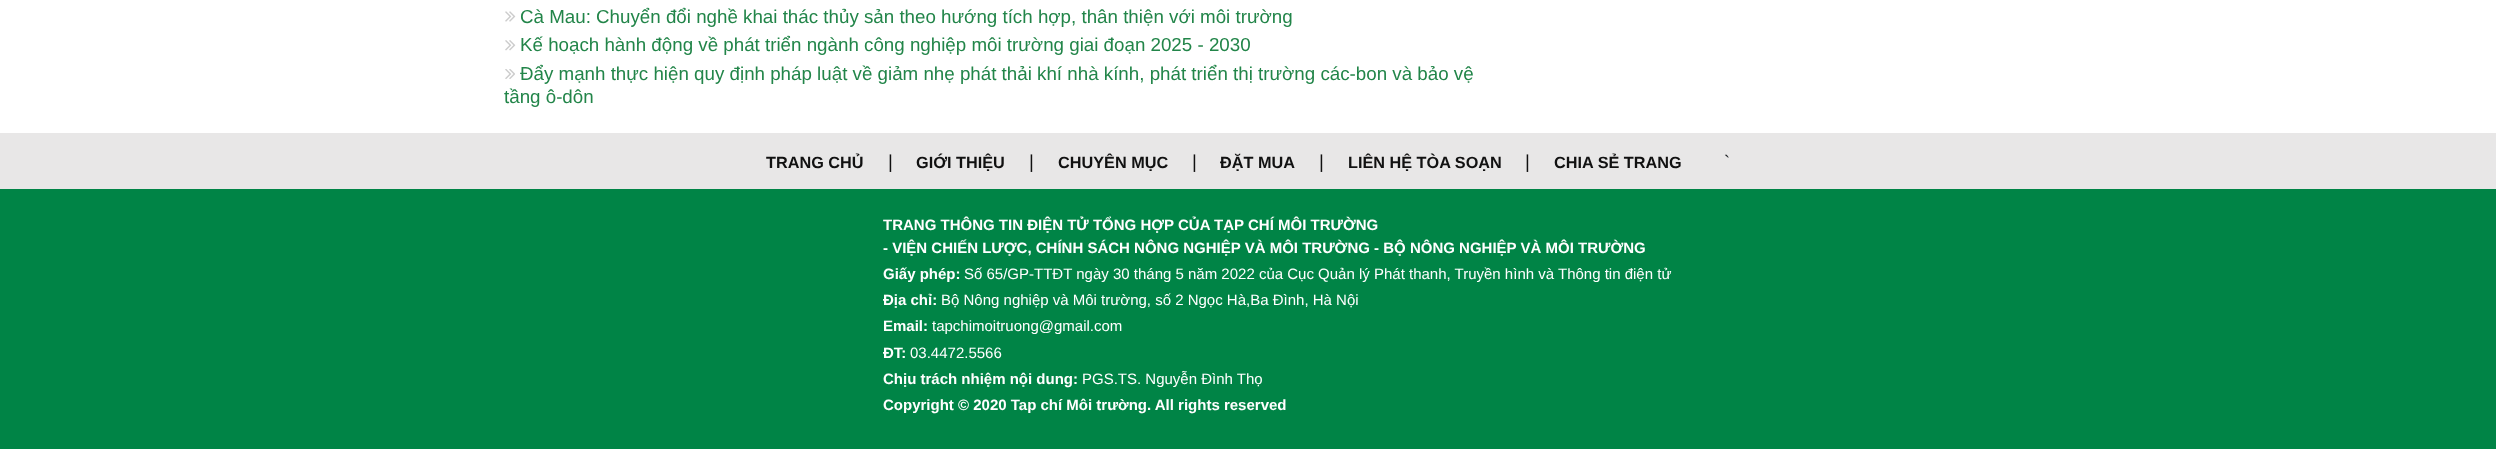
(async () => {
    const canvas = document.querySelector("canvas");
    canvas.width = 2496;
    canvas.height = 449;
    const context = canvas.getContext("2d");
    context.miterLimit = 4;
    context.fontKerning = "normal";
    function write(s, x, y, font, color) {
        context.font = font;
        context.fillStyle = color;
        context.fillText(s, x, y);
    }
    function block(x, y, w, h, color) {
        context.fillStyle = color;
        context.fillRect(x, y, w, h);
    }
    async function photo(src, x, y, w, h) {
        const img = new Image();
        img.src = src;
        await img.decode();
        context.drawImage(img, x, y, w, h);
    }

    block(0, 0, 2496, 449, "rgb(255, 255, 255)");
    await photo("media/1.png", 505, 11, 11, 11);
    write("Cà Mau: Chuyển đổi nghề khai thác thủy sản theo hướng tích hợp, thân thiện với môi trường", 520, 23, "18.75px Liberation Sans", "rgb(34, 133, 73)");
    await photo("media/2.png", 505, 40, 11, 11);
    write("Kế hoạch hành động về phát triển ngành công nghiệp môi trường giai đoạn 2025 - 2030", 520, 51, "18.75px Liberation Sans", "rgb(34, 133, 73)");
    await photo("media/3.png", 505, 69, 10, 10);
    write("Đẩy mạnh thực hiện quy định pháp luật về giảm nhẹ phát thải khí nhà kính, phát triển thị trường các-bon và bảo vệ", 520, 80, "18.75px Liberation Sans", "rgb(34, 133, 73)");
    write("tầng ô-dôn", 504, 103, "18.75px Liberation Sans", "rgb(34, 133, 73)");
    block(0, 189, 2496, 260, "rgb(0, 132, 70)");
    block(0, 133, 2496, 56, "rgb(232, 231, 231)");
    write("TRANG CHỦ", 766, 168, "bold 16.25px Liberation Sans", "rgb(17, 17, 17)");
    write("|", 888, 168, "18.75px Liberation Sans", "rgb(17, 17, 17)");
    write("GIỚI THIỆU", 916, 168, "bold 16.25px Liberation Sans", "rgb(17, 17, 17)");
    write("|", 1029, 168, "18.75px Liberation Sans", "rgb(17, 17, 17)");
    write("CHUYÊN MỤC", 1058, 168, "bold 16.25px Liberation Sans", "rgb(17, 17, 17)");
    write("|", 1192, 168, "18.75px Liberation Sans", "rgb(17, 17, 17)");
    write("ĐẶT MUA", 1220, 168, "bold 16.25px Liberation Sans", "rgb(17, 17, 17)");
    write("|", 1319, 168, "18.75px Liberation Sans", "rgb(17, 17, 17)");
    write("LIÊN HỆ TÒA SOẠN", 1348, 168, "bold 16.25px Liberation Sans", "rgb(17, 17, 17)");
    write("|", 1525, 168, "18.75px Liberation Sans", "rgb(17, 17, 17)");
    write("CHIA SẺ TRANG", 1554, 168, "bold 16.25px Liberation Sans", "rgb(17, 17, 17)");
    write("`", 1724, 168, "18px Liberation Sans", "rgb(33, 37, 41)");
    write("TRANG THÔNG TIN ĐIỆN TỬ TỔNG HỢP CỦA TẠP CHÍ MÔI TRƯỜNG", 883, 230, "bold 15px Liberation Sans", "rgb(255, 255, 255)");
    write("- VIỆN CHIẾN LƯỢC, CHÍNH SÁCH NÔNG NGHIỆP VÀ MÔI TRƯỜNG - BỘ NÔNG NGHIỆP VÀ MÔI TRƯỜNG", 883, 253, "bold 15px Liberation Sans", "rgb(255, 255, 255)");
    write("Giấy phép:", 883, 279, "bold 15px Liberation Sans", "rgb(255, 255, 255)");
    write("Số 65/GP-TTĐT ngày 30 tháng 5 năm 2022 của Cục Quản lý Phát thanh, Truyền hình và Thông tin điện tử", 964, 279, "15px Liberation Sans", "rgb(255, 255, 255)");
    write("Địa chỉ:", 883, 305, "bold 15px Liberation Sans", "rgb(255, 255, 255)");
    write("Bộ Nông nghiệp và Môi trường, số 2 Ngọc Hà,Ba Đình, Hà Nội", 941, 305, "15px Liberation Sans", "rgb(255, 255, 255)");
    write("Email:", 883, 331, "bold 15px Liberation Sans", "rgb(255, 255, 255)");
    write("tapchimoitruong@gmail.com", 932, 331, "15px Liberation Sans", "rgb(255, 255, 255)");
    write("ĐT:", 883, 358, "bold 15px Liberation Sans", "rgb(255, 255, 255)");
    write("03.4472.5566", 910, 358, "15px Liberation Sans", "rgb(255, 255, 255)");
    write("Chịu trách nhiệm nội dung:", 883, 384, "bold 15px Liberation Sans", "rgb(255, 255, 255)");
    write("PGS.TS. Nguyễn Đình Thọ", 1082, 384, "15px Liberation Sans", "rgb(255, 255, 255)");
    write("Copyright © 2020 Tap chí Môi trường. All rights reserved", 883, 410, "bold 15px Liberation Sans", "rgb(255, 255, 255)");
})();
